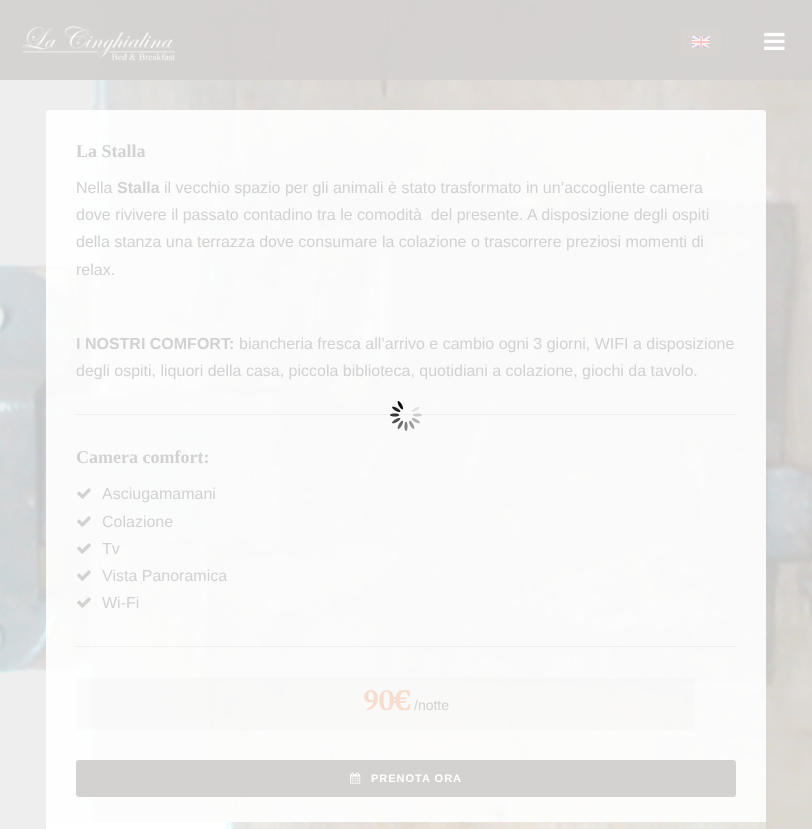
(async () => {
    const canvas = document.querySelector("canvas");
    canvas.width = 812;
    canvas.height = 829;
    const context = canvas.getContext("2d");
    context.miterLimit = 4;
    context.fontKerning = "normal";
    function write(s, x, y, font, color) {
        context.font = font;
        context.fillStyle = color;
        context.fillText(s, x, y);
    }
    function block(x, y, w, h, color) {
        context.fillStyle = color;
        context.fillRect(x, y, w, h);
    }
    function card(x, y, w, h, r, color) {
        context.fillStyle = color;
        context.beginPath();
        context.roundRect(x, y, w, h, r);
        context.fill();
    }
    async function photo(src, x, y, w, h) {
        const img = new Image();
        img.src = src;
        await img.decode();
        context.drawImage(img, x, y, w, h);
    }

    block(0, 0, 812, 829, "rgb(255, 255, 255)");
    await photo("media/1.png", 0, 0, 812, 829);
    block(0, 0, 812, 80, "rgba(212, 210, 209, 0.95)");
    await photo("media/2.png", 22, 26, 154, 35);
    block(681, 27, 40, 28, "rgb(216, 212, 209)");
    await photo("media/3.png", 692, 36, 18, 12);
    await photo("media/4.png", 764, 32, 21, 18);
    card(46, 110, 720, 717, 3, "rgba(255, 255, 255, 0.9)");
    write("La Stalla", 76, 157, "bold 18px Liberation Serif", "rgb(210, 210, 210)");
    write("Nella", 76, 193, "16px Liberation Sans", "rgb(210, 210, 210)");
    write("Stalla", 117, 193, "bold 16px Liberation Sans", "rgb(210, 210, 210)");
    write("il vecchio spazio per gli animali è stato trasformato in un’accogliente camera", 164, 193, "16px Liberation Sans", "rgb(210, 210, 210)");
    write("dove rivivere il passato contadino tra le comodità  del presente. A disposizione degli ospiti", 76, 220, "16px Liberation Sans", "rgb(210, 210, 210)");
    write("della stanza una terrazza dove consumare la colazione o trascorrere preziosi momenti di", 76, 247, "16px Liberation Sans", "rgb(210, 210, 210)");
    write("relax.", 76, 275, "16px Liberation Sans", "rgb(210, 210, 210)");
    write("I NOSTRI COMFORT:", 76, 349, "bold 16px Liberation Sans", "rgb(210, 210, 210)");
    write("biancheria fresca all’arrivo e cambio ogni 3 giorni, WIFI a disposizione", 239, 349, "16px Liberation Sans", "rgb(210, 210, 210)");
    write("degli ospiti, liquori della casa, piccola biblioteca, quotidiani a colazione, giochi da tavolo.", 76, 376, "16px Liberation Sans", "rgb(210, 210, 210)");
    block(76, 414, 660, 1, "rgba(199, 199, 199, 0.2)");
    write("Camera comfort:", 76, 463, "bold 18px Liberation Serif", "rgb(210, 210, 210)");
    await photo("media/5.png", 77, 488, 14, 11);
    write("Asciugamamani", 102, 499, "16px Liberation Sans", "rgb(210, 210, 210)");
    await photo("media/6.png", 77, 516, 14, 11);
    write("Colazione", 102, 527, "16px Liberation Sans", "rgb(210, 210, 210)");
    await photo("media/7.png", 77, 543, 14, 11);
    write("Tv", 102, 554, "16px Liberation Sans", "rgb(210, 210, 210)");
    await photo("media/8.png", 77, 570, 14, 11);
    write("Vista Panoramica", 102, 581, "16px Liberation Sans", "rgb(210, 210, 210)");
    await photo("media/9.png", 77, 597, 14, 11);
    write("Wi-Fi", 102, 608, "16px Liberation Sans", "rgb(210, 210, 210)");
    block(76, 646, 660, 1, "rgba(199, 199, 199, 0.2)");
    block(76, 678, 618, 52, "rgba(199, 199, 199, 0.05)");
    write("90€", 363, 710, "bold 28px PT Serif", "rgb(248, 221, 207)");
    write("/notte", 414, 710, "14px Liberation Sans", "rgb(210, 210, 210)");
    card(76, 760, 660, 37, 3, "rgb(212, 210, 209)");
    await photo("media/10.png", 350, 772, 11, 12);
    context.letterSpacing = "1px";
    write("PRENOTA ORA", 371, 782, "bold 11px Liberation Sans", "rgb(255, 255, 255)");
    await photo("media/11.png", 46, 822, 720, 7);
    await photo("media/12.png", 390, 400, 32, 31);
})();
